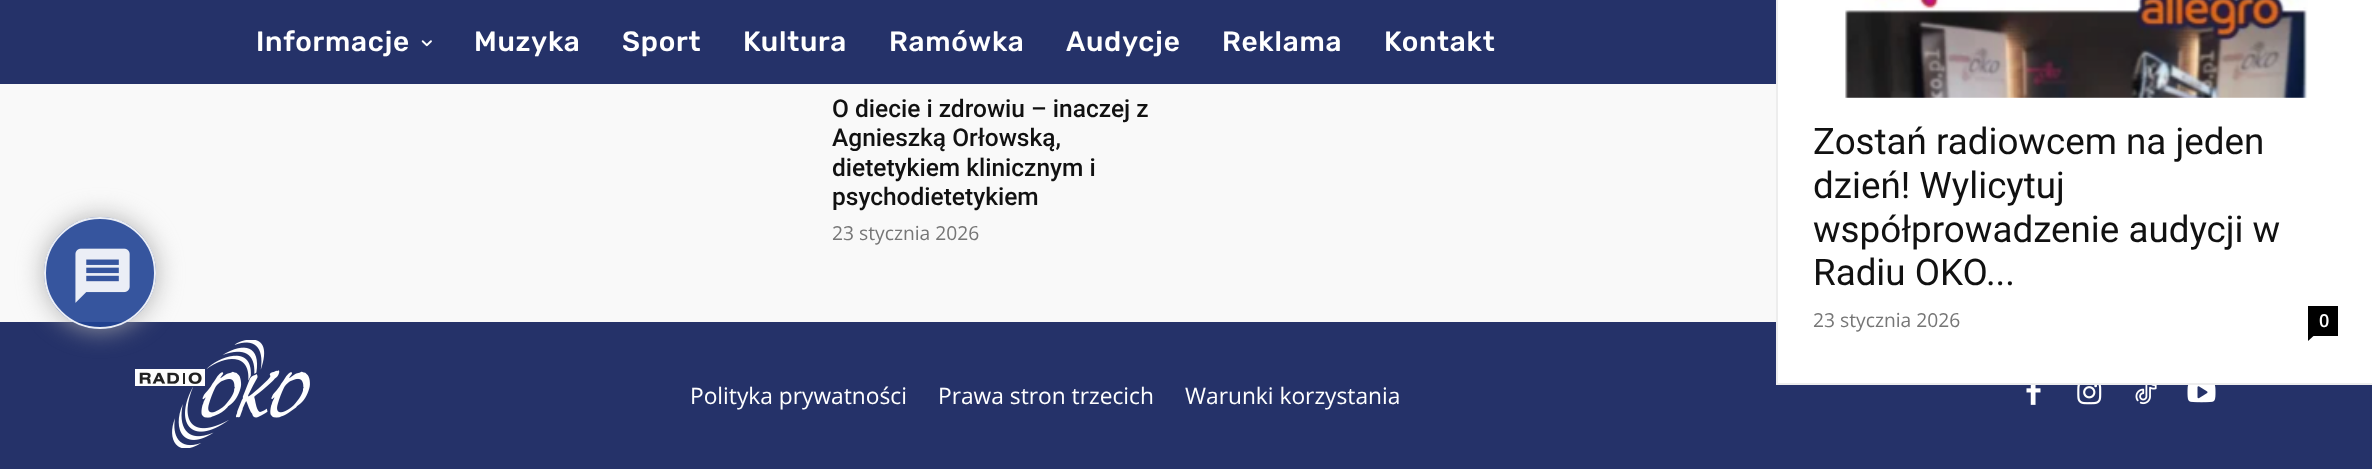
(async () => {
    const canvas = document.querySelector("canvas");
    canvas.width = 2372;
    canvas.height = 469;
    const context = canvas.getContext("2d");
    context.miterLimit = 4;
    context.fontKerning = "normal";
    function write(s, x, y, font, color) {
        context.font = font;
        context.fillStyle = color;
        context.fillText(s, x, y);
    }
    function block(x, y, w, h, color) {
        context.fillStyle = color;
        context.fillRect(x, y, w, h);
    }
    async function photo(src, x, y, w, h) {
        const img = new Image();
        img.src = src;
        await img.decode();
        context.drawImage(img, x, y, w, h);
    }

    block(0, 0, 2372, 469, "rgb(249, 249, 249)");
    block(0, 322, 2372, 147, "rgb(37, 50, 105)");
    await photo("media/3.png", 135, 340, 175, 108);
    context.save();
    context.beginPath();
    context.moveTo(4, 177);
    context.lineTo(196, 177);
    context.lineTo(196, 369);
    context.lineTo(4, 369);
    context.closePath();
    context.moveTo(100, 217);
    context.bezierCurveTo(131, 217, 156, 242, 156, 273);
    context.bezierCurveTo(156, 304, 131, 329, 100, 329);
    context.bezierCurveTo(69, 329, 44, 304, 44, 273);
    context.bezierCurveTo(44, 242, 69, 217, 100, 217);
    context.closePath();
    context.clip("evenodd");
    context.fillStyle = "rgba(170, 170, 170, 0.9)";
    context.filter = "blur(13px)";
    context.beginPath();
    context.roundRect(44, 217, 112, 112, 56);
    context.fill();
    context.filter = "none";
    context.restore();
    context.fillStyle = "rgba(32, 67, 147, 0.9)";
    context.beginPath();
    context.arc(100, 273, 56, 0, Math.PI * 2);
    context.fill();
    context.beginPath();
    context.arc(100, 273, 55, 0, Math.PI * 2);
    context.strokeStyle = "rgba(255, 255, 255, 0.9)";
    context.lineWidth = 2;
    context.stroke();
    await photo("media/1.png", 75, 248, 55, 55);
    block(0, 0, 1776, 84, "rgb(37, 50, 105)");
    context.letterSpacing = "0.75px";
    write("Informacje", 256, 51, "500 28px Rubik", "rgb(255, 255, 255)");
    await photo("media/2.png", 421, 40, 11, 7);
    write("Muzyka", 474, 51, "500 28px Rubik", "rgb(255, 255, 255)");
    write("Sport", 622, 51, "500 28px Rubik", "rgb(255, 255, 255)");
    write("Kultura", 743, 51, "500 28px Rubik", "rgb(255, 255, 255)");
    write("Ramówka", 889, 51, "500 28px Rubik", "rgb(255, 255, 255)");
    write("Audycje", 1066, 51, "500 28px Rubik", "rgb(255, 255, 255)");
    write("Reklama", 1222, 51, "500 28px Rubik", "rgb(255, 255, 255)");
    write("Kontakt", 1384, 51, "500 28px Rubik", "rgb(255, 255, 255)");
    context.letterSpacing = "0px";
    write("O diecie i zdrowiu – inaczej z", 832, 117, "500 24.5px Roboto", "rgb(17, 17, 17)");
    write("Agnieszką Orłowską,", 832, 146, "500 24.5px Roboto", "rgb(17, 17, 17)");
    write("dietetykiem klinicznym i", 832, 176, "500 24.5px Roboto", "rgb(17, 17, 17)");
    write("psychodietetykiem", 832, 205, "500 24.5px Roboto", "rgb(17, 17, 17)");
    write("23 stycznia 2026", 832, 240, "19.25px Open Sans", "rgb(118, 118, 118)");
    write("Polityka prywatności", 690, 404, "22.75px Open Sans", "rgb(255, 255, 255)");
    write("Prawa stron trzecich", 938, 404, "22.75px Open Sans", "rgb(255, 255, 255)");
    write("Warunki korzystania", 1185, 404, "22.75px Open Sans", "rgb(255, 255, 255)");
    await photo("media/4.png", 2026, 385, 15, 20);
    await photo("media/5.png", 2077, 385, 25, 20);
    await photo("media/6.png", 2135, 385, 22, 20);
    await photo("media/7.png", 2187, 385, 29, 18);
    block(1778, 0, 594, 383, "rgb(255, 255, 255)");
    block(1776, 383, 596, 2, "rgb(237, 237, 237)");
    block(1776, 0, 2, 385, "rgb(237, 237, 237)");
    await photo("media/8.png", 1845, 0, 463, 98);
    write("Zostań radiowcem na jeden", 1813, 154, "36.75px Roboto", "rgb(17, 17, 17)");
    write("dzień! Wylicytuj", 1813, 198, "36.75px Roboto", "rgb(17, 17, 17)");
    write("współprowadzenie audycji w", 1813, 242, "36.75px Roboto", "rgb(17, 17, 17)");
    write("Radiu OKO...", 1813, 285, "36.75px Roboto", "rgb(17, 17, 17)");
    write("23 stycznia 2026", 1813, 327, "19.25px Open Sans", "rgb(118, 118, 118)");
    block(2308, 306, 30, 30, "rgb(0, 0, 0)");
    write("0", 2319, 327, "600 18px Open Sans", "rgb(255, 255, 255)");
    context.fillStyle = "rgb(0, 0, 0)";
    context.beginPath();
    context.moveTo(2308, 336);
    context.lineTo(2313.5, 336);
    context.lineTo(2308, 341);
    context.closePath();
    context.fill();
})();
